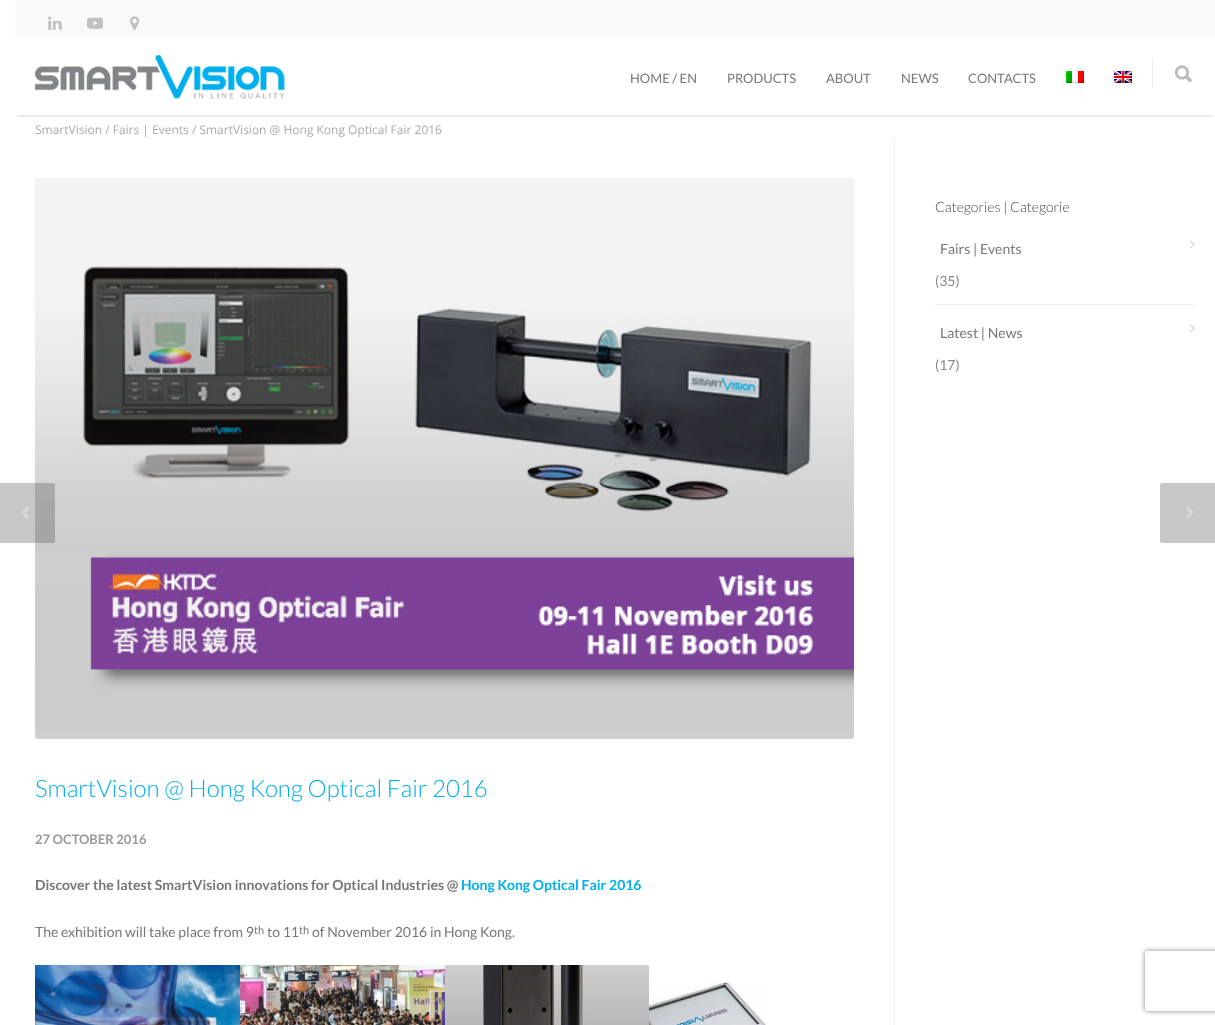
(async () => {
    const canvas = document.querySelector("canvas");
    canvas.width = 1215;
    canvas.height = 1025;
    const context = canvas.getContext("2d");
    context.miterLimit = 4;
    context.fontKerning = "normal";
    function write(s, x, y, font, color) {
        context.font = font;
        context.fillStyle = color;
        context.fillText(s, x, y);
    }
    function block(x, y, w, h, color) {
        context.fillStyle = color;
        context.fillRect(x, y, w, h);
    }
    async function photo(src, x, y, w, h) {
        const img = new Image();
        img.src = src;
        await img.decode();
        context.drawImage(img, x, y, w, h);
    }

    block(0, 0, 1215, 1025, "rgb(255, 255, 255)");
    block(15, 0, 1200, 35, "rgb(249, 249, 249)");
    await photo("media/1.png", 48, 16, 14, 14);
    await photo("media/2.png", 87, 17, 16, 12);
    await photo("media/3.png", 130, 16, 10, 15);
    context.save();
    context.beginPath();
    context.rect(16, 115, 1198, 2);
    context.clip();
    context.fillStyle = "rgba(0, 0, 0, 0.16)";
    context.filter = "blur(1px)";
    context.beginPath();
    context.rect(17, 40, 1196, 76);
    context.fill();
    context.filter = "none";
    context.restore();
    await photo("media/4.png", 35, 55, 250, 44);
    write("HOME / EN", 630, 83, "13px Lato", "rgb(119, 119, 119)");
    write("PRODUCTS", 727, 83, "13px Lato", "rgb(119, 119, 119)");
    write("ABOUT", 826, 83, "13px Lato", "rgb(119, 119, 119)");
    write("NEWS", 901, 83, "13px Lato", "rgb(119, 119, 119)");
    write("CONTACTS", 968, 83, "13px Lato", "rgb(119, 119, 119)");
    await photo("media/5.png", 1066, 71, 18, 12);
    await photo("media/6.png", 1114, 71, 18, 12);
    block(1152, 58, 1, 30, "rgb(239, 239, 239)");
    await photo("media/7.png", 1174, 65, 18, 18);
    write("SmartVision / Fairs | Events / SmartVision @ Hong Kong Optical Fair 2016", 35, 134, "12px Open Sans", "rgb(170, 170, 170)");
    write("Categories | Categorie", 935, 212, "300 14px Lato", "rgb(68, 68, 68)");
    block(935, 304, 260, 1, "rgb(239, 239, 239)");
    write("Fairs | Events", 940, 254, "14px Lato", "rgb(119, 119, 119)");
    await photo("media/8.png", 1190, 240, 5, 9);
    write("(35)", 935, 286, "14px Lato", "rgb(136, 136, 136)");
    write("Latest | News", 940, 338, "14px Lato", "rgb(119, 119, 119)");
    await photo("media/8.png", 1190, 324, 5, 9);
    write("(17)", 935, 370, "14px Lato", "rgb(136, 136, 136)");
    block(894, 138, 1, 887, "rgb(239, 239, 239)");
    await photo("media/11.png", 35, 178, 819, 561);
    context.fillStyle = "rgba(68, 68, 68, 0.3)";
    context.beginPath();
    context.moveTo(-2, 483);
    context.lineTo(53, 483);
    context.bezierCurveTo(54, 483, 55, 484, 55, 485);
    context.lineTo(55, 541);
    context.bezierCurveTo(55, 542, 54, 543, 53, 543);
    context.lineTo(-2, 543);
    context.closePath();
    context.fill();
    await photo("media/9.png", 21, 506, 8, 13);
    context.fillStyle = "rgb(199, 199, 199)";
    context.beginPath();
    context.moveTo(1162, 483);
    context.lineTo(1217, 483);
    context.lineTo(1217, 543);
    context.lineTo(1162, 543);
    context.bezierCurveTo(1161, 543, 1160, 542, 1160, 541);
    context.lineTo(1160, 485);
    context.bezierCurveTo(1160, 484, 1161, 483, 1162, 483);
    context.closePath();
    context.fill();
    await photo("media/10.png", 1186, 506, 8, 13);
    write("SmartVision @ Hong Kong Optical Fair 2016", 35, 797, "300 24px Lato", "rgb(0, 175, 238)");
    write("27 OCTOBER 2016", 35, 844, "bold 13px Lato", "rgb(153, 153, 153)");
    write("Discover the latest SmartVision innovations for Optical Industries @", 35, 890, "bold 14px Lato", "rgb(119, 119, 119)");
    write("Hong Kong Optical Fair 2016", 461, 890, "bold 14px Lato", "rgb(0, 175, 238)");
    write("The exhibition will take place from 9", 35, 937, "14px Lato", "rgb(119, 119, 119)");
    write("th", 254, 934, "11px Lato", "rgb(119, 119, 119)");
    write("to 11", 267, 937, "14px Lato", "rgb(119, 119, 119)");
    write("th", 299, 934, "11px Lato", "rgb(119, 119, 119)");
    write("of November 2016 in Hong Kong.", 312, 937, "14px Lato", "rgb(119, 119, 119)");
    await photo("media/12.png", 35, 965, 205, 60);
    await photo("media/13.png", 240, 965, 205, 60);
    await photo("media/14.png", 445, 965, 204, 60);
    await photo("media/15.png", 649, 982, 117, 43);
    context.save();
    context.beginPath();
    context.moveTo(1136, 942);
    context.lineTo(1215, 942);
    context.lineTo(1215, 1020);
    context.lineTo(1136, 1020);
    context.closePath();
    context.moveTo(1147, 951);
    context.lineTo(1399, 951);
    context.bezierCurveTo(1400, 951, 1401, 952, 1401, 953);
    context.lineTo(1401, 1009);
    context.bezierCurveTo(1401, 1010, 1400, 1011, 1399, 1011);
    context.lineTo(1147, 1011);
    context.bezierCurveTo(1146, 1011, 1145, 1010, 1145, 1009);
    context.lineTo(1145, 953);
    context.bezierCurveTo(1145, 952, 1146, 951, 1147, 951);
    context.closePath();
    context.clip("evenodd");
    context.fillStyle = "rgb(128, 128, 128)";
    context.filter = "blur(2.5px)";
    context.beginPath();
    context.roundRect(1145, 951, 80, 60, 2);
    context.fill();
    context.filter = "none";
    context.restore();
})();
